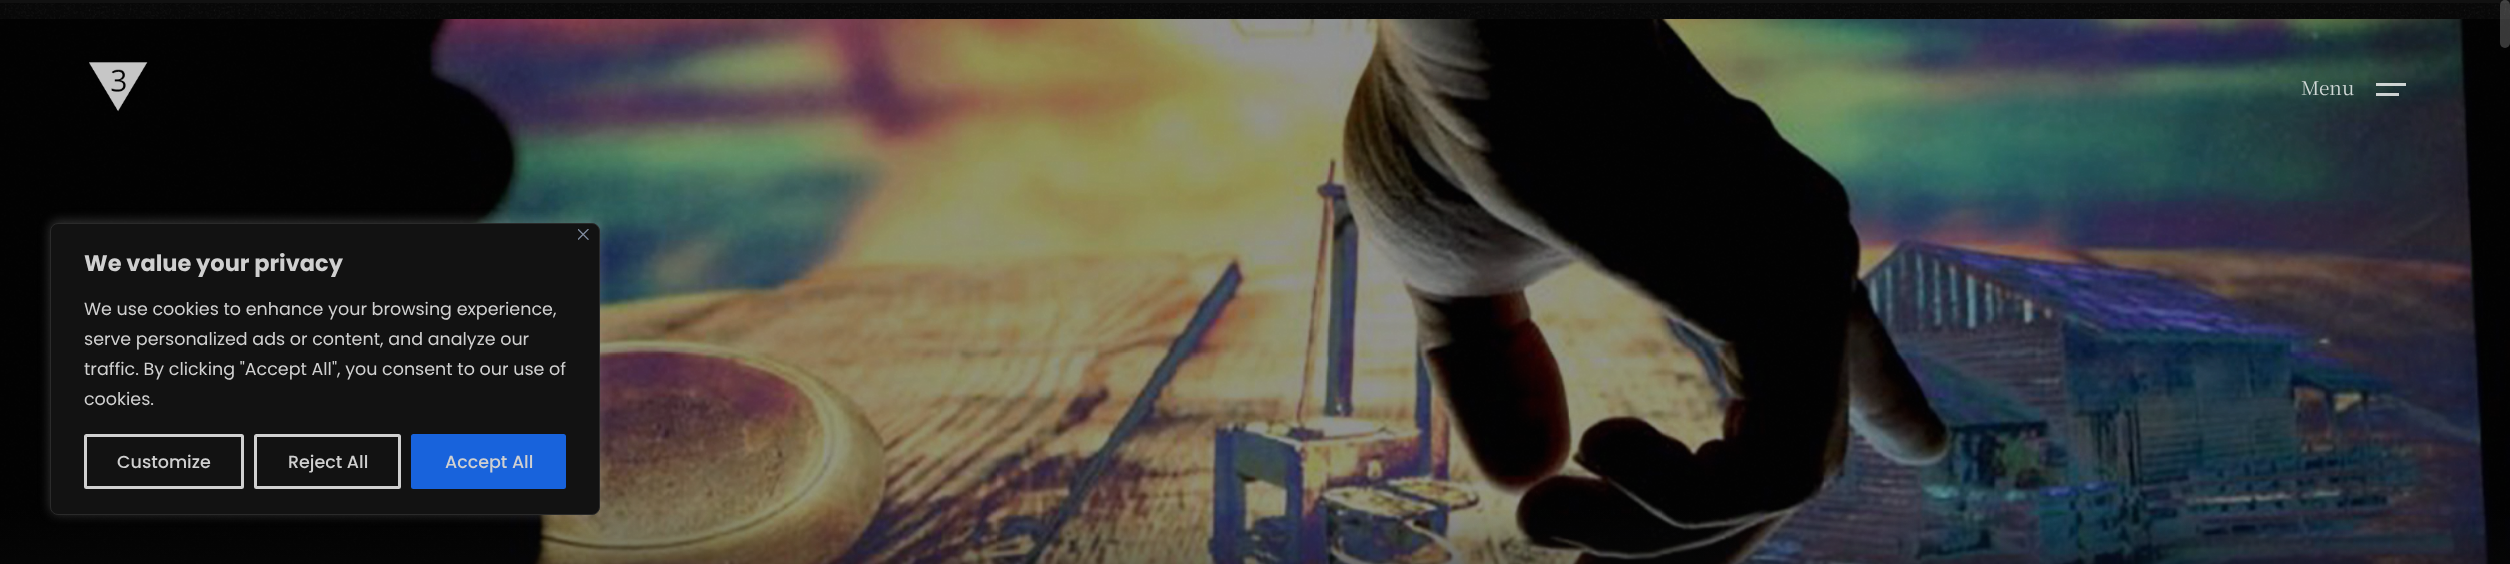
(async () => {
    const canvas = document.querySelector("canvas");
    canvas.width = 2510;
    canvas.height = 564;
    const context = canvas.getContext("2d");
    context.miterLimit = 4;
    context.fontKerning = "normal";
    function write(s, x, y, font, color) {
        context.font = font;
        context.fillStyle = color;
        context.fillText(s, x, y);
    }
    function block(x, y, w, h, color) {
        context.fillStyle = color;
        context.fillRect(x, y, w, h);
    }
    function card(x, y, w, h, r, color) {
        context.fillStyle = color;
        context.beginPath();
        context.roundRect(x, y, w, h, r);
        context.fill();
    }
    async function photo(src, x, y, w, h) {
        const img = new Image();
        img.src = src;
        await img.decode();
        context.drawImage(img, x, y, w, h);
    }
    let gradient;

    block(0, 0, 2510, 564, "rgb(8, 8, 8)");
    await photo("media/2.png", 0, 3, 2510, 561);
    await photo("media/1.png", 0, 19, 2510, 545);
    block(0, 0, 2510, 3, "rgb(17, 17, 17)");
    card(2500, 0, 10, 48, 5, "rgba(221, 221, 221, 0.25)");
    gradient = context.createLinearGradient(1255, 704, 1255, 506);
    gradient.addColorStop(0, "rgb(13, 13, 13)");
    gradient.addColorStop(1, "rgba(13, 13, 13, 0)");
    context.fillStyle = gradient;
    context.fillRect(0, 510, 2510, 54);
    await photo("media/3.png", 89, 62, 59, 50);
    write("Menu", 2301, 95, "19px Noto Serif JP", "rgb(208, 215, 213)");
    block(2376, 83, 30, 3, "rgba(255, 255, 255, 0.78)");
    block(2376, 93, 23, 3, "rgba(255, 255, 255, 0.78)");
    context.fillStyle = "rgba(172, 171, 171, 0.3)";
    context.filter = "blur(6px)";
    context.beginPath();
    context.roundRect(50, 221, 550, 293, 8);
    context.fill();
    context.filter = "none";
    context.fillStyle = "rgb(18, 18, 18)";
    context.beginPath();
    context.roundRect(50.5, 223.5, 549, 291, 7.5);
    context.fill();
    context.strokeStyle = "rgb(42, 42, 42)";
    context.stroke();
    await photo("media/4.png", 578, 229, 11, 11);
    write("We value your privacy", 84, 271, "bold 22.5px Poppins", "rgb(208, 208, 208)");
    write("We use cookies to enhance your browsing experience,", 84, 315, "17.5px Poppins", "rgb(208, 208, 208)");
    write("serve personalized ads or content, and analyze our", 84, 345, "17.5px Poppins", "rgb(208, 208, 208)");
    write("traffic. By clicking \"Accept All\", you consent to our use of", 84, 375, "17.5px Poppins", "rgb(208, 208, 208)");
    write("cookies.", 84, 405, "17.5px Poppins", "rgb(208, 208, 208)");
    context.beginPath();
    context.roundRect(85.5, 435.5, 157, 52, 1);
    context.strokeStyle = "rgb(208, 208, 208)";
    context.lineWidth = 3;
    context.stroke();
    write("Customize", 117, 468, "500 17.5px Poppins", "rgb(208, 208, 208)");
    context.beginPath();
    context.roundRect(255.5, 435.5, 144, 52, 1);
    context.stroke();
    write("Reject All", 288, 468, "500 17.5px Poppins", "rgb(208, 208, 208)");
    context.fillStyle = "rgb(24, 99, 220)";
    context.beginPath();
    context.roundRect(412.5, 435.5, 152, 52, 1);
    context.fill();
    context.strokeStyle = "rgb(24, 99, 220)";
    context.stroke();
    write("Accept All", 445, 468, "500 17.5px Poppins", "rgb(208, 208, 208)");
})();
